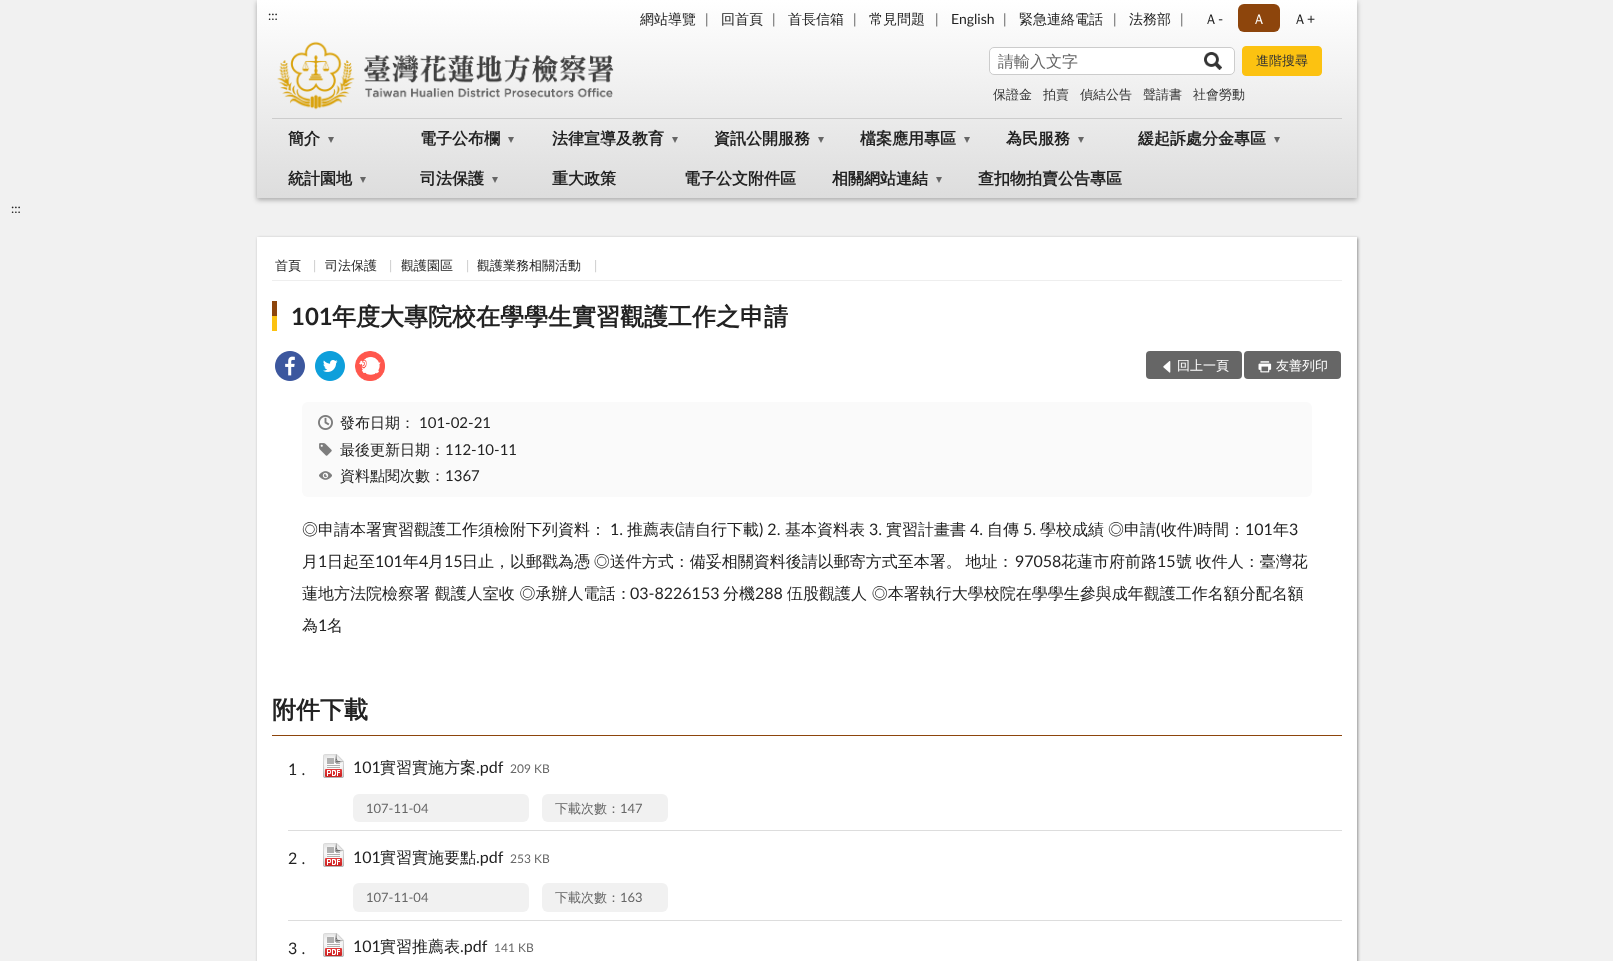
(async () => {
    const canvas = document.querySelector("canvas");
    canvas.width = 1613;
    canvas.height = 961;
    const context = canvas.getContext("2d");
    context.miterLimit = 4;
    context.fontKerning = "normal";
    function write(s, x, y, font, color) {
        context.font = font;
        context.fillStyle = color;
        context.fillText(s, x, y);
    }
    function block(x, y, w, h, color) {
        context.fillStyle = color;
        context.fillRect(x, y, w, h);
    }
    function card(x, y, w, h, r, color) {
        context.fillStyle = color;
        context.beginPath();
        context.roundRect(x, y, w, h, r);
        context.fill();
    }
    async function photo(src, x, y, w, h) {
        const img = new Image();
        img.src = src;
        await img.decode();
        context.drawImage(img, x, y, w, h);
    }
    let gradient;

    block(0, 0, 1613, 961, "rgb(241, 241, 241)");
    context.fillStyle = "rgba(0, 0, 0, 0.3)";
    context.filter = "blur(2.5px)";
    context.beginPath();
    context.rect(257, 2, 1100, 198);
    context.fill();
    context.filter = "none";
    gradient = context.createLinearGradient(807, 0, 807, 198);
    gradient.addColorStop(0, "rgb(255, 255, 255)");
    gradient.addColorStop(1, "rgb(221, 221, 221)");
    context.fillStyle = gradient;
    context.fillRect(257, 0, 1100, 198);
    write(":::", 268, 20, "13px Lato", "rgb(34, 34, 34)");
    write("網站導覽", 640, 24, "500 14px WenQuanYi Zen Hei", "rgb(34, 34, 34)");
    write("|", 705, 24, "14px Lato", "rgb(102, 102, 102)");
    write("回首頁", 721, 24, "500 14px WenQuanYi Zen Hei", "rgb(34, 34, 34)");
    write("|", 772, 24, "14px Lato", "rgb(102, 102, 102)");
    write("首長信箱", 788, 24, "500 14px WenQuanYi Zen Hei", "rgb(34, 34, 34)");
    write("|", 853, 24, "14px Lato", "rgb(102, 102, 102)");
    write("常見問題", 869, 24, "500 14px WenQuanYi Zen Hei", "rgb(34, 34, 34)");
    write("|", 935, 24, "14px Lato", "rgb(102, 102, 102)");
    write("English", 951, 24, "14px Lato", "rgb(34, 34, 34)");
    write("|", 1003, 24, "14px Lato", "rgb(102, 102, 102)");
    write("緊急連絡電話", 1019, 24, "500 14px WenQuanYi Zen Hei", "rgb(34, 34, 34)");
    write("|", 1113, 24, "14px Lato", "rgb(102, 102, 102)");
    write("法務部", 1129, 24, "500 14px WenQuanYi Zen Hei", "rgb(34, 34, 34)");
    write("|", 1180, 24, "14px Lato", "rgb(102, 102, 102)");
    write("Ａ", 1204, 24, "500 14px WenQuanYi Zen Hei", "rgb(34, 34, 34)");
    write("-", 1218, 24, "14px Lato", "rgb(34, 34, 34)");
    card(1238, 4, 42, 28, 6, "rgb(141, 69, 12)");
    write("Ａ", 1252, 24, "500 14px WenQuanYi Zen Hei", "rgb(255, 255, 255)");
    write("Ａ", 1293, 24, "500 14px WenQuanYi Zen Hei", "rgb(34, 34, 34)");
    write("+", 1307, 24, "14px Lato", "rgb(34, 34, 34)");
    await photo("media/1.png", 277, 41, 337, 69);
    context.fillStyle = "rgb(255, 255, 255)";
    context.beginPath();
    context.roundRect(989.5, 47.5, 245, 27, 4.5);
    context.fill();
    context.strokeStyle = "rgb(204, 204, 204)";
    context.stroke();
    write("請輸入文字", 998, 67, "500 16px WenQuanYi Zen Hei", "rgb(102, 102, 102)");
    await photo("media/2.png", 1204, 52, 18, 18);
    context.fillStyle = "rgb(252, 194, 17)";
    context.beginPath();
    context.roundRect(1242.5, 46.5, 79, 29, 3.5);
    context.fill();
    context.strokeStyle = "rgb(252, 194, 17)";
    context.stroke();
    write("進階搜尋", 1256, 65, "500 13px WenQuanYi Zen Hei", "rgb(51, 51, 51)");
    write("保證金", 993, 99, "500 13px WenQuanYi Zen Hei", "rgb(51, 51, 51)");
    write("拍賣", 1043, 99, "500 13px WenQuanYi Zen Hei", "rgb(51, 51, 51)");
    write("偵結公告", 1080, 99, "500 13px WenQuanYi Zen Hei", "rgb(51, 51, 51)");
    write("聲請書", 1143, 99, "500 13px WenQuanYi Zen Hei", "rgb(51, 51, 51)");
    write("社會勞動", 1193, 99, "500 13px WenQuanYi Zen Hei", "rgb(51, 51, 51)");
    block(272, 118, 1070, 1, "rgb(204, 204, 204)");
    write("簡介", 288, 144, "bold 16px WenQuanYi Zen Hei", "rgb(34, 34, 34)");
    context.fillStyle = "rgb(102, 102, 102)";
    context.beginPath();
    context.moveTo(328, 137);
    context.lineTo(334, 137);
    context.lineTo(331, 143);
    context.closePath();
    context.fill();
    write("電子公布欄", 420, 144, "bold 16px WenQuanYi Zen Hei", "rgb(34, 34, 34)");
    context.fillStyle = "rgb(102, 102, 102)";
    context.beginPath();
    context.moveTo(508, 137);
    context.lineTo(514, 137);
    context.lineTo(511, 143);
    context.closePath();
    context.fill();
    write("法律宣導及教育", 552, 144, "bold 16px WenQuanYi Zen Hei", "rgb(34, 34, 34)");
    context.fillStyle = "rgb(102, 102, 102)";
    context.beginPath();
    context.moveTo(672, 137);
    context.lineTo(678, 137);
    context.lineTo(675, 143);
    context.closePath();
    context.fill();
    write("資訊公開服務", 714, 144, "bold 16px WenQuanYi Zen Hei", "rgb(34, 34, 34)");
    context.fillStyle = "rgb(102, 102, 102)";
    context.beginPath();
    context.moveTo(818, 137);
    context.lineTo(824, 137);
    context.lineTo(821, 143);
    context.closePath();
    context.fill();
    write("檔案應用專區", 860, 144, "bold 16px WenQuanYi Zen Hei", "rgb(34, 34, 34)");
    context.fillStyle = "rgb(102, 102, 102)";
    context.beginPath();
    context.moveTo(964, 137);
    context.lineTo(970, 137);
    context.lineTo(967, 143);
    context.closePath();
    context.fill();
    write("為民服務", 1006, 144, "bold 16px WenQuanYi Zen Hei", "rgb(34, 34, 34)");
    context.fillStyle = "rgb(102, 102, 102)";
    context.beginPath();
    context.moveTo(1078, 137);
    context.lineTo(1084, 137);
    context.lineTo(1081, 143);
    context.closePath();
    context.fill();
    write("緩起訴處分金專區", 1138, 144, "bold 16px WenQuanYi Zen Hei", "rgb(34, 34, 34)");
    context.fillStyle = "rgb(102, 102, 102)";
    context.beginPath();
    context.moveTo(1274, 137);
    context.lineTo(1280, 137);
    context.lineTo(1277, 143);
    context.closePath();
    context.fill();
    write("統計園地", 288, 184, "bold 16px WenQuanYi Zen Hei", "rgb(34, 34, 34)");
    context.fillStyle = "rgb(102, 102, 102)";
    context.beginPath();
    context.moveTo(360, 177);
    context.lineTo(366, 177);
    context.lineTo(363, 183);
    context.closePath();
    context.fill();
    write("司法保護", 420, 184, "bold 16px WenQuanYi Zen Hei", "rgb(34, 34, 34)");
    context.fillStyle = "rgb(102, 102, 102)";
    context.beginPath();
    context.moveTo(492, 177);
    context.lineTo(498, 177);
    context.lineTo(495, 183);
    context.closePath();
    context.fill();
    write("重大政策", 552, 184, "bold 16px WenQuanYi Zen Hei", "rgb(34, 34, 34)");
    write("電子公文附件區", 684, 184, "bold 16px WenQuanYi Zen Hei", "rgb(34, 34, 34)");
    write("相關網站連結", 832, 184, "bold 16px WenQuanYi Zen Hei", "rgb(34, 34, 34)");
    context.fillStyle = "rgb(102, 102, 102)";
    context.beginPath();
    context.moveTo(936, 177);
    context.lineTo(942, 177);
    context.lineTo(939, 183);
    context.closePath();
    context.fill();
    write("查扣物拍賣公告專區", 978, 184, "bold 16px WenQuanYi Zen Hei", "rgb(34, 34, 34)");
    write(":::", 11, 213, "13px Lato", "rgb(34, 34, 34)");
    context.fillStyle = "rgba(0, 0, 0, 0.4)";
    context.filter = "blur(1.5px)";
    context.beginPath();
    context.rect(258, 238, 1100, 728);
    context.fill();
    context.filter = "none";
    block(257, 237, 1100, 724, "rgb(255, 255, 255)");
    block(272, 280, 1070, 1, "rgb(238, 238, 238)");
    write("首頁", 275, 270, "500 13px WenQuanYi Zen Hei", "rgb(34, 34, 34)");
    write("|", 313, 270, "13px Lato", "rgb(204, 204, 204)");
    write("司法保護", 325, 270, "500 13px WenQuanYi Zen Hei", "rgb(34, 34, 34)");
    write("|", 389, 270, "13px Lato", "rgb(204, 204, 204)");
    write("觀護園區", 401, 270, "500 13px WenQuanYi Zen Hei", "rgb(34, 34, 34)");
    write("|", 466, 270, "13px Lato", "rgb(204, 204, 204)");
    write("觀護業務相關活動", 477, 270, "500 13px WenQuanYi Zen Hei", "rgb(34, 34, 34)");
    write("|", 594, 270, "13px Lato", "rgb(204, 204, 204)");
    block(272, 301, 5, 15, "rgb(141, 69, 12)");
    write("101", 291, 325, "bold 24px Lato", "rgb(34, 34, 34)");
    write("年度大專院校在學學生實習觀護工作之申請", 332, 325, "bold 24px WenQuanYi Zen Hei", "rgb(34, 34, 34)");
    block(272, 316, 5, 15, "rgb(252, 194, 17)");
    await photo("media/3.png", 275, 351, 30, 30);
    await photo("media/4.png", 315, 351, 30, 30);
    await photo("media/5.png", 355, 351, 30, 30);
    card(1146, 351, 96, 28, 4, "rgb(102, 102, 102)");
    await photo("media/6.png", 1163, 361, 8, 12);
    write("回上一頁", 1177, 370, "500 13px WenQuanYi Zen Hei", "rgb(255, 255, 255)");
    card(1244, 351, 97, 28, 4, "rgb(102, 102, 102)");
    await photo("media/7.png", 1258, 361, 14, 12);
    write("友善列印", 1276, 370, "500 13px WenQuanYi Zen Hei", "rgb(255, 255, 255)");
    card(302, 402, 1010, 95, 6, "rgb(250, 250, 250)");
    await photo("media/8.png", 318, 415, 15, 15);
    write("發布日期：", 340, 428, "500 15px WenQuanYi Zen Hei", "rgb(34, 34, 34)");
    write("101-02-21", 419, 428, "15px Lato", "rgb(34, 34, 34)");
    await photo("media/9.png", 319, 443, 13, 13);
    write("最後更新日期：", 340, 455, "500 15px WenQuanYi Zen Hei", "rgb(34, 34, 34)");
    write("112-10-11", 445, 455, "15px Lato", "rgb(34, 34, 34)");
    await photo("media/10.png", 319, 471, 13, 9);
    write("資料點閱次數：", 340, 481, "500 15px WenQuanYi Zen Hei", "rgb(34, 34, 34)");
    write("1367", 445, 481, "15px Lato", "rgb(34, 34, 34)");
    write("◎申請本署實習觀護工作須檢附下列資料：", 302, 535, "500 16px WenQuanYi Zen Hei", "rgb(34, 34, 34)");
    write("1.", 610, 535, "16px Lato", "rgb(34, 34, 34)");
    write("推薦表", 627, 535, "500 16px WenQuanYi Zen Hei", "rgb(34, 34, 34)");
    write("(", 675, 535, "16px Lato", "rgb(34, 34, 34)");
    write("請自行下載", 679, 535, "500 16px WenQuanYi Zen Hei", "rgb(34, 34, 34)");
    write(") 2.", 759, 535, "16px Lato", "rgb(34, 34, 34)");
    write("基本資料表", 785, 535, "500 16px WenQuanYi Zen Hei", "rgb(34, 34, 34)");
    write("3.", 869, 535, "16px Lato", "rgb(34, 34, 34)");
    write("實習計畫書", 886, 535, "500 16px WenQuanYi Zen Hei", "rgb(34, 34, 34)");
    write("4.", 970, 535, "16px Lato", "rgb(34, 34, 34)");
    write("自傳", 987, 535, "500 16px WenQuanYi Zen Hei", "rgb(34, 34, 34)");
    write("5.", 1023, 535, "16px Lato", "rgb(34, 34, 34)");
    write("學校成績", 1040, 535, "500 16px WenQuanYi Zen Hei", "rgb(34, 34, 34)");
    write("◎申請", 1108, 535, "500 16px WenQuanYi Zen Hei", "rgb(34, 34, 34)");
    write("(", 1156, 535, "16px Lato", "rgb(34, 34, 34)");
    write("收件", 1161, 535, "500 16px WenQuanYi Zen Hei", "rgb(34, 34, 34)");
    write(")", 1193, 535, "16px Lato", "rgb(34, 34, 34)");
    write("時間：", 1197, 535, "500 16px WenQuanYi Zen Hei", "rgb(34, 34, 34)");
    write("101", 1245, 535, "16px Lato", "rgb(34, 34, 34)");
    write("年", 1273, 535, "500 16px WenQuanYi Zen Hei", "rgb(34, 34, 34)");
    write("3", 1289, 535, "16px Lato", "rgb(34, 34, 34)");
    write("月", 302, 567, "500 16px WenQuanYi Zen Hei", "rgb(34, 34, 34)");
    write("1", 318, 567, "16px Lato", "rgb(34, 34, 34)");
    write("日起至", 327, 567, "500 16px WenQuanYi Zen Hei", "rgb(34, 34, 34)");
    write("101", 375, 567, "16px Lato", "rgb(34, 34, 34)");
    write("年", 403, 567, "500 16px WenQuanYi Zen Hei", "rgb(34, 34, 34)");
    write("4", 419, 567, "16px Lato", "rgb(34, 34, 34)");
    write("月", 428, 567, "500 16px WenQuanYi Zen Hei", "rgb(34, 34, 34)");
    write("15", 444, 567, "16px Lato", "rgb(34, 34, 34)");
    context.wordSpacing = "-1px";
    write("日止，以郵戳為憑 ◎送件方式：備妥相關資料後請以郵寄方式至本署。 地址：", 462, 567, "500 16px WenQuanYi Zen Hei", "rgb(34, 34, 34)");
    context.wordSpacing = "0px";
    write("97058", 1015, 567, "16px Lato", "rgb(34, 34, 34)");
    write("花蓮市府前路", 1061, 567, "500 16px WenQuanYi Zen Hei", "rgb(34, 34, 34)");
    write("15", 1157, 567, "16px Lato", "rgb(34, 34, 34)");
    context.wordSpacing = "-1px";
    write("號 收件人：臺灣花", 1176, 567, "500 16px WenQuanYi Zen Hei", "rgb(34, 34, 34)");
    context.wordSpacing = "0px";
    write("蓮地方法院檢察署 觀護人室收 ◎承辦人電話：", 302, 599, "500 16px WenQuanYi Zen Hei", "rgb(34, 34, 34)");
    write("03-8226153", 630, 599, "16px Lato", "rgb(34, 34, 34)");
    write("分機", 723, 599, "500 16px WenQuanYi Zen Hei", "rgb(34, 34, 34)");
    write("288", 755, 599, "16px Lato", "rgb(34, 34, 34)");
    write("伍股觀護人 ◎本署執行大學校院在學學生參與成年觀護工作名額分配名額", 787, 599, "500 16px WenQuanYi Zen Hei", "rgb(34, 34, 34)");
    write("為", 302, 631, "500 16px WenQuanYi Zen Hei", "rgb(34, 34, 34)");
    write("1", 318, 631, "16px Lato", "rgb(34, 34, 34)");
    write("名", 327, 631, "500 16px WenQuanYi Zen Hei", "rgb(34, 34, 34)");
    block(272, 735, 1070, 1, "rgb(141, 69, 12)");
    write("附件下載", 272, 718, "bold 24px WenQuanYi Zen Hei", "rgb(34, 34, 34)");
    block(288, 830, 1054, 1, "rgb(221, 221, 221)");
    write("1 .", 288, 775, "16px Lato", "rgb(34, 34, 34)");
    await photo("media/11.png", 323, 754, 21, 24);
    write("101", 353, 773, "16px Lato", "rgb(34, 34, 34)");
    write("實習實施方案", 380, 773, "500 16px WenQuanYi Zen Hei", "rgb(34, 34, 34)");
    write(".pdf", 476, 773, "16px Lato", "rgb(34, 34, 34)");
    write("209 KB", 510, 773, "12px Lato", "rgb(102, 102, 102)");
    card(353, 794, 176, 28, 6, "rgb(241, 241, 241)");
    write("107-11-04", 366, 813, "13px Lato", "rgb(102, 102, 102)");
    card(542, 794, 126, 28, 6, "rgb(241, 241, 241)");
    write("下載次數：", 555, 813, "500 13px WenQuanYi Zen Hei", "rgb(102, 102, 102)");
    write("147", 620, 813, "13px Lato", "rgb(102, 102, 102)");
    block(288, 920, 1054, 1, "rgb(221, 221, 221)");
    write("2 .", 288, 864, "16px Lato", "rgb(34, 34, 34)");
    await photo("media/11.png", 323, 843, 21, 24);
    write("101", 353, 863, "16px Lato", "rgb(34, 34, 34)");
    write("實習實施要點", 380, 863, "500 16px WenQuanYi Zen Hei", "rgb(34, 34, 34)");
    write(".pdf", 476, 863, "16px Lato", "rgb(34, 34, 34)");
    write("253 KB", 510, 863, "12px Lato", "rgb(102, 102, 102)");
    card(353, 883, 176, 29, 6, "rgb(241, 241, 241)");
    write("107-11-04", 366, 902, "13px Lato", "rgb(102, 102, 102)");
    card(542, 883, 126, 29, 6, "rgb(241, 241, 241)");
    write("下載次數：", 555, 902, "500 13px WenQuanYi Zen Hei", "rgb(102, 102, 102)");
    write("163", 620, 902, "13px Lato", "rgb(102, 102, 102)");
    write("3 .", 288, 954, "16px Lato", "rgb(34, 34, 34)");
    await photo("media/11.png", 323, 933, 21, 24);
    write("101", 353, 952, "16px Lato", "rgb(34, 34, 34)");
    write("實習推薦表", 380, 952, "500 16px WenQuanYi Zen Hei", "rgb(34, 34, 34)");
    write(".pdf", 460, 952, "16px Lato", "rgb(34, 34, 34)");
    write("141 KB", 494, 952, "12px Lato", "rgb(102, 102, 102)");
})();
